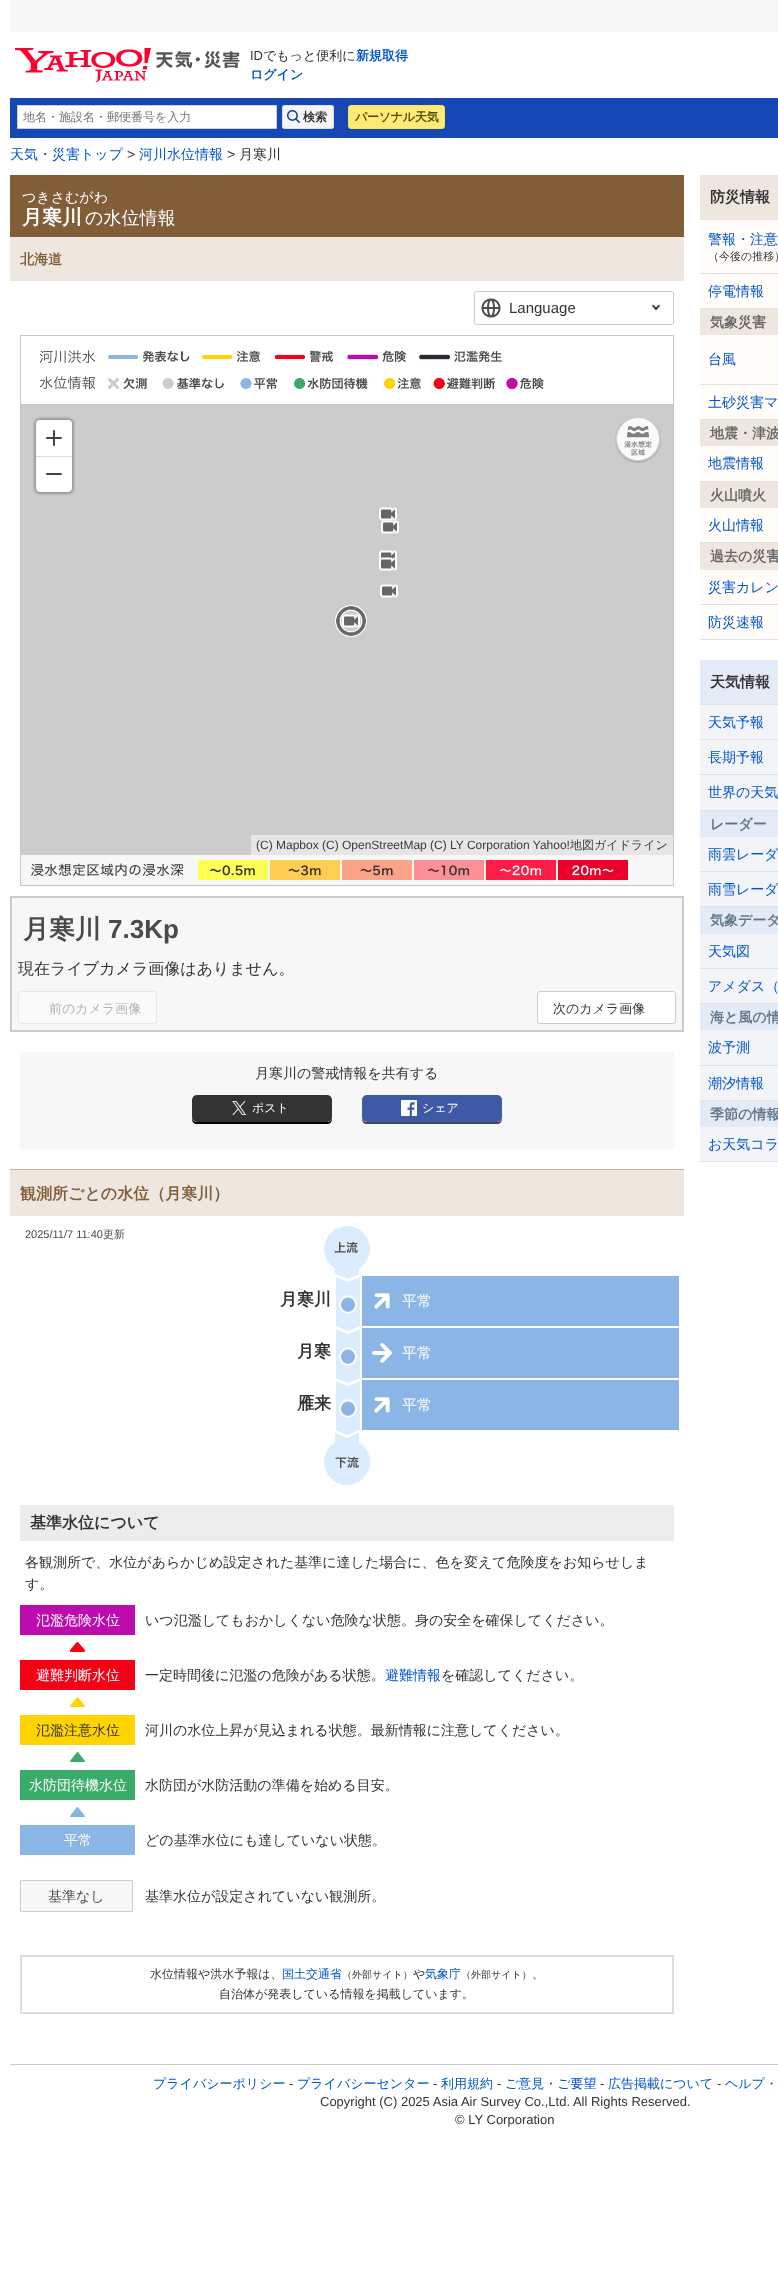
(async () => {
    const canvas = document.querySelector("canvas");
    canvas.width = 778;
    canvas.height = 2296;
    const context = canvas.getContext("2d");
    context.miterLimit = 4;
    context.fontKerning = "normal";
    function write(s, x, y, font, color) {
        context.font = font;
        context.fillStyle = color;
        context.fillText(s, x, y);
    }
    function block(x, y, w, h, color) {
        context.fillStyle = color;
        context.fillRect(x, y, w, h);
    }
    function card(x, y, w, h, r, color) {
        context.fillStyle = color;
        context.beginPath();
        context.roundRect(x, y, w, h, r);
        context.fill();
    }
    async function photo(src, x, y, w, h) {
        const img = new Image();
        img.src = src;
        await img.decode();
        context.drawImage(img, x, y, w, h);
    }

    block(0, 0, 778, 2296, "rgb(255, 255, 255)");
    block(10, 0, 768, 32, "rgb(247, 247, 248)");
    await photo("media/1.png", 15, 48, 225, 34);
    write("ID", 250, 60, "13px Liberation Sans", "rgb(51, 51, 51)");
    write("でもっと便利に", 263, 60, "500 13px WenQuanYi Zen Hei", "rgb(51, 51, 51)");
    write("新規取得", 356, 60, "bold 13px WenQuanYi Zen Hei", "rgb(0, 85, 204)");
    write("ログイン", 250, 79, "bold 13px WenQuanYi Zen Hei", "rgb(0, 85, 204)");
    block(10, 98, 768, 40, "rgb(21, 72, 181)");
    context.fillStyle = "rgb(255, 255, 255)";
    context.beginPath();
    context.rect(17.5, 105.5, 259, 23);
    context.fill();
    context.strokeStyle = "rgb(204, 204, 204)";
    context.stroke();
    write("地名・施設名・郵便番号を入力", 23, 121, "500 12px WenQuanYi Zen Hei", "rgb(117, 117, 117)");
    card(282, 105, 52, 24, 3, "rgb(245, 245, 245)");
    await photo("media/2.png", 287, 110, 13, 13);
    context.beginPath();
    context.roundRect(282.5, 105.5, 51, 23, 2.5);
    context.strokeStyle = "rgb(220, 220, 220)";
    context.stroke();
    write("検索", 303, 121, "bold 12px WenQuanYi Zen Hei", "rgb(51, 51, 51)");
    context.fillStyle = "rgb(255, 234, 118)";
    context.beginPath();
    context.roundRect(348.5, 105.5, 96, 23, 2.5);
    context.fill();
    context.strokeStyle = "rgb(255, 226, 67)";
    context.stroke();
    context.letterSpacing = "-0.25px";
    write("パーソナル天気", 355, 121, "bold 12px WenQuanYi Zen Hei", "rgb(81, 73, 0)");
    context.letterSpacing = "0px";
    write("天気・災害トップ", 10, 159, "500 14px WenQuanYi Zen Hei", "rgb(0, 85, 204)");
    write(">", 127, 159, "14px Liberation Sans", "rgb(51, 51, 51)");
    write("河川水位情報", 139, 159, "500 14px WenQuanYi Zen Hei", "rgb(0, 85, 204)");
    write(">", 227, 159, "14px Liberation Sans", "rgb(51, 51, 51)");
    write("月寒川", 239, 159, "500 14px WenQuanYi Zen Hei", "rgb(51, 51, 51)");
    block(10, 175, 674, 62, "rgb(129, 93, 56)");
    write("つきさむがわ", 22, 202, "500 14px WenQuanYi Zen Hei", "rgb(255, 255, 255)");
    write("月寒川", 22, 224, "bold 20px WenQuanYi Zen Hei", "rgb(255, 255, 255)");
    write("の水位情報", 85, 224, "500 18px WenQuanYi Zen Hei", "rgb(255, 255, 255)");
    block(10, 237, 674, 44, "rgb(238, 231, 224)");
    write("北海道", 20, 264, "bold 14px WenQuanYi Zen Hei", "rgb(129, 93, 56)");
    await photo("media/3.png", 481, 298, 20, 20);
    context.beginPath();
    context.roundRect(474.5, 291.5, 199, 33, 2.5);
    context.strokeStyle = "rgb(204, 204, 204)";
    context.stroke();
    write("Language", 509, 313, "15px Liberation Sans", "rgb(51, 51, 51)");
    context.beginPath();
    context.moveTo(660, 306);
    context.lineTo(656, 310);
    context.lineTo(654.5, 309);
    context.lineTo(659, 304.5);
    context.closePath();
    context.fill();
    context.beginPath();
    context.moveTo(657.5, 309);
    context.lineTo(656, 310);
    context.lineTo(652, 306);
    context.lineTo(653, 304.5);
    context.closePath();
    context.fill();
    context.strokeStyle = "rgb(198, 198, 198)";
    context.strokeRect(20.5, 335.5, 653, 550);
    block(21, 404, 652, 1, "rgb(198, 198, 198)");
    await photo("media/4.png", 39, 350, 463, 13);
    await photo("media/5.png", 39, 376, 505, 14);
    block(21, 405, 652, 450, "rgb(204, 204, 204)");
    context.fillStyle = "rgb(255, 255, 255)";
    context.beginPath();
    context.roundRect(36, 456, 36, 36, [0, 0, 4, 4]);
    context.fill();
    block(36, 456, 36, 1, "rgb(221, 221, 221)");
    card(46, 473, 16, 2, 1, "rgb(68, 68, 68)");
    context.save();
    context.beginPath();
    context.moveTo(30, 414);
    context.lineTo(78, 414);
    context.lineTo(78, 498);
    context.lineTo(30, 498);
    context.closePath();
    context.moveTo(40, 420);
    context.lineTo(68, 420);
    context.bezierCurveTo(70, 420, 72, 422, 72, 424);
    context.lineTo(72, 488);
    context.bezierCurveTo(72, 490, 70, 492, 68, 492);
    context.lineTo(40, 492);
    context.bezierCurveTo(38, 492, 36, 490, 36, 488);
    context.lineTo(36, 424);
    context.bezierCurveTo(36, 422, 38, 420, 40, 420);
    context.closePath();
    context.clip("evenodd");
    context.fillStyle = "rgba(0, 0, 0, 0.25)";
    context.filter = "blur(1px)";
    context.beginPath();
    context.roundRect(34, 418, 40, 76, 6);
    context.fill();
    context.filter = "none";
    context.restore();
    await photo("media/6.png", 615, 418, 46, 45);
    context.fillStyle = "rgb(255, 255, 255)";
    context.beginPath();
    context.roundRect(36, 420, 36, 36, [4, 4, 0, 0]);
    context.fill();
    card(46, 437, 16, 2, 1, "rgb(68, 68, 68)");
    card(53, 430, 2, 16, 1, "rgb(68, 68, 68)");
    await photo("media/7.png", 379, 507, 18, 14);
    await photo("media/8.png", 381, 520, 18, 14);
    await photo("media/9.png", 379, 550, 18, 13);
    await photo("media/10.png", 379, 557, 18, 14);
    await photo("media/7.png", 380, 584, 18, 14);
    await photo("media/11.png", 335, 605, 32, 32);
    await photo("media/12.png", 342, 614, 18, 14);
    block(251, 835, 422, 20, "rgb(230, 230, 230)");
    write("(C) Mapbox (C) OpenStreetMap (C) LY Corporation Yahoo!", 256, 849, "12px Liberation Sans", "rgb(58, 58, 58)");
    write("地図ガイドライン", 570, 849, "500 12px WenQuanYi Zen Hei", "rgb(58, 58, 58)");
    block(21, 855, 652, 30, "rgb(247, 247, 247)");
    await photo("media/13.png", 31, 860, 597, 20);
    context.beginPath();
    context.rect(11, 897, 672, 134);
    context.fill();
    context.strokeStyle = "rgb(204, 204, 204)";
    context.lineWidth = 2;
    context.stroke();
    write("月寒川", 23, 938, "bold 26px WenQuanYi Zen Hei", "rgb(74, 74, 74)");
    write("7.3Kp", 108, 938, "bold 26px Liberation Sans", "rgb(74, 74, 74)");
    write("現在ライブカメラ画像はありません。", 18, 974, "500 16px WenQuanYi Zen Hei", "rgb(51, 51, 51)");
    context.fillStyle = "rgb(250, 250, 250)";
    context.beginPath();
    context.roundRect(18.5, 991.5, 138, 32, 2.5);
    context.fill();
    context.strokeStyle = "rgb(232, 232, 232)";
    context.lineWidth = 1;
    context.stroke();
    write("前のカメラ画像", 49, 1013, "500 13px WenQuanYi Zen Hei", "rgb(178, 178, 178)");
    context.fillStyle = "rgb(255, 255, 255)";
    context.beginPath();
    context.roundRect(537.5, 991.5, 138, 32, 2.5);
    context.fill();
    context.strokeStyle = "rgb(204, 204, 204)";
    context.stroke();
    write("次のカメラ画像", 553, 1013, "500 13px WenQuanYi Zen Hei", "rgb(51, 51, 51)");
    block(20, 1052, 654, 97, "rgb(247, 247, 247)");
    write("月寒川の警戒情報を共有する", 255, 1078, "500 14px WenQuanYi Zen Hei", "rgb(51, 51, 51)");
    context.fillStyle = "rgb(0, 0, 0)";
    context.beginPath();
    context.moveTo(192, 1117);
    context.lineTo(192, 1119);
    context.bezierCurveTo(192, 1122, 194, 1124, 197, 1124);
    context.lineTo(327, 1124);
    context.bezierCurveTo(330, 1124, 332, 1122, 332, 1119);
    context.lineTo(332, 1117);
    context.bezierCurveTo(332, 1120, 330, 1122, 327, 1122);
    context.lineTo(197, 1122);
    context.bezierCurveTo(194, 1122, 192, 1120, 192, 1117);
    context.closePath();
    context.fill();
    card(192, 1095, 140, 27, 5, "rgb(51, 51, 51)");
    await photo("media/14.png", 232, 1101, 15, 14);
    write("ポスト", 252, 1112, "500 12px WenQuanYi Zen Hei", "rgb(255, 255, 255)");
    context.fillStyle = "rgb(66, 72, 86)";
    context.beginPath();
    context.moveTo(362, 1117);
    context.lineTo(362, 1119);
    context.bezierCurveTo(362, 1122, 364, 1124, 367, 1124);
    context.lineTo(497, 1124);
    context.bezierCurveTo(500, 1124, 502, 1122, 502, 1119);
    context.lineTo(502, 1117);
    context.bezierCurveTo(502, 1120, 500, 1122, 497, 1122);
    context.lineTo(367, 1122);
    context.bezierCurveTo(364, 1122, 362, 1120, 362, 1117);
    context.closePath();
    context.fill();
    card(362, 1095, 140, 27, 5, "rgb(62, 89, 166)");
    await photo("media/15.png", 401, 1100, 16, 16);
    write("シェア", 422, 1112, "500 12px WenQuanYi Zen Hei", "rgb(255, 255, 255)");
    block(10, 1170, 674, 46, "rgb(238, 231, 224)");
    block(10, 1169, 674, 1, "rgb(195, 179, 164)");
    write("観測所ごとの水位（月寒川）", 20, 1199, "bold 16px WenQuanYi Zen Hei", "rgb(129, 93, 56)");
    await photo("media/16.png", 324, 1226, 46, 48);
    write("2025/11/7 11:40", 25, 1238, "11px Liberation Sans", "rgb(74, 74, 74)");
    write("更新", 103, 1238, "500 11px WenQuanYi Zen Hei", "rgb(74, 74, 74)");
    await photo("media/17.png", 336, 1274, 24, 52);
    write("月寒川", 280, 1305, "bold 17px WenQuanYi Zen Hei", "rgb(51, 51, 51)");
    block(362, 1276, 317, 50, "rgb(138, 181, 229)");
    await photo("media/18.png", 374, 1293, 16, 16);
    write("平常", 402, 1306, "500 15px WenQuanYi Zen Hei", "rgb(255, 255, 255)");
    await photo("media/19.png", 336, 1326, 24, 52);
    write("月寒", 297, 1357, "bold 17px WenQuanYi Zen Hei", "rgb(51, 51, 51)");
    block(362, 1328, 317, 50, "rgb(138, 181, 229)");
    await photo("media/20.png", 372, 1343, 20, 20);
    write("平常", 402, 1358, "500 15px WenQuanYi Zen Hei", "rgb(255, 255, 255)");
    await photo("media/19.png", 336, 1378, 24, 52);
    write("雁来", 297, 1409, "bold 17px WenQuanYi Zen Hei", "rgb(51, 51, 51)");
    block(362, 1380, 317, 50, "rgb(138, 181, 229)");
    await photo("media/18.png", 374, 1397, 16, 16);
    write("平常", 402, 1410, "500 15px WenQuanYi Zen Hei", "rgb(255, 255, 255)");
    await photo("media/21.png", 324, 1430, 46, 55);
    block(20, 1505, 654, 36, "rgb(236, 236, 236)");
    write("基準水位について", 30, 1528, "bold 16px WenQuanYi Zen Hei", "rgb(51, 51, 51)");
    write("各観測所で、水位があらかじめ設定された基準に達した場合に、色を変えて危険度をお知らせしま", 25, 1567, "500 14px WenQuanYi Zen Hei", "rgb(51, 51, 51)");
    write("す。", 25, 1589, "500 14px WenQuanYi Zen Hei", "rgb(51, 51, 51)");
    await photo("media/22.png", 70, 1642, 15, 10);
    block(20, 1605, 115, 30, "rgb(188, 12, 174)");
    write("氾濫危険水位", 36, 1625, "500 14px WenQuanYi Zen Hei", "rgb(255, 255, 255)");
    write("いつ氾濫してもおかしくない危険な状態。身の安全を確保してください。", 145, 1625, "500 14px WenQuanYi Zen Hei", "rgb(51, 51, 51)");
    await photo("media/23.png", 70, 1697, 15, 10);
    block(20, 1660, 115, 30, "rgb(243, 2, 22)");
    write("避難判断水位", 36, 1680, "500 14px WenQuanYi Zen Hei", "rgb(255, 255, 255)");
    write("一定時間後に氾濫の危険がある状態。", 145, 1680, "500 14px WenQuanYi Zen Hei", "rgb(51, 51, 51)");
    write("避難情報", 385, 1680, "500 14px WenQuanYi Zen Hei", "rgb(0, 85, 204)");
    write("を確認してください。", 441, 1680, "500 14px WenQuanYi Zen Hei", "rgb(51, 51, 51)");
    await photo("media/24.png", 70, 1752, 15, 10);
    block(20, 1715, 115, 30, "rgb(255, 212, 0)");
    write("氾濫注意水位", 36, 1735, "500 14px WenQuanYi Zen Hei", "rgb(51, 51, 51)");
    write("河川の水位上昇が見込まれる状態。最新情報に注意してください。", 145, 1735, "500 14px WenQuanYi Zen Hei", "rgb(51, 51, 51)");
    await photo("media/25.png", 70, 1807, 15, 10);
    block(20, 1770, 115, 30, "rgb(58, 171, 104)");
    write("水防団待機水位", 29, 1790, "500 14px WenQuanYi Zen Hei", "rgb(255, 255, 255)");
    write("水防団が水防活動の準備を始める目安。", 145, 1790, "500 14px WenQuanYi Zen Hei", "rgb(51, 51, 51)");
    block(20, 1825, 115, 30, "rgb(138, 181, 229)");
    write("平常", 64, 1845, "500 14px WenQuanYi Zen Hei", "rgb(255, 255, 255)");
    write("どの基準水位にも達していない状態。", 145, 1845, "500 14px WenQuanYi Zen Hei", "rgb(51, 51, 51)");
    context.fillStyle = "rgb(247, 247, 247)";
    context.beginPath();
    context.rect(20.5, 1880.5, 112, 31);
    context.fill();
    context.stroke();
    write("基準なし", 48, 1901, "500 14px WenQuanYi Zen Hei", "rgb(74, 74, 74)");
    write("基準水位が設定されていない観測所。", 145, 1901, "500 14px WenQuanYi Zen Hei", "rgb(51, 51, 51)");
    context.strokeStyle = "rgb(221, 221, 221)";
    context.lineWidth = 2;
    context.strokeRect(21, 1956, 652, 57);
    write("水位情報や洪水予報は、", 150, 1978, "500 12px WenQuanYi Zen Hei", "rgb(51, 51, 51)");
    write("国土交通省", 282, 1978, "500 12px WenQuanYi Zen Hei", "rgb(0, 85, 204)");
    write("（外部サイト）", 342, 1978, "500 10px WenQuanYi Zen Hei", "rgb(51, 51, 51)");
    write("や", 413, 1978, "500 12px WenQuanYi Zen Hei", "rgb(51, 51, 51)");
    write("気象庁", 425, 1978, "500 12px WenQuanYi Zen Hei", "rgb(0, 85, 204)");
    write("（外部サイト）", 461, 1978, "500 10px WenQuanYi Zen Hei", "rgb(51, 51, 51)");
    write("、", 532, 1978, "500 12px WenQuanYi Zen Hei", "rgb(51, 51, 51)");
    write("自治体が発表している情報を掲載しています。", 219, 1998, "500 12px WenQuanYi Zen Hei", "rgb(51, 51, 51)");
    block(700, 220, 78, 419, "rgb(255, 252, 249)");
    block(700, 175, 78, 44, "rgb(238, 231, 224)");
    block(700, 219, 78, 1, "rgb(225, 227, 226)");
    write("防災情報", 710, 202, "bold 15px WenQuanYi Zen Hei", "rgb(51, 51, 51)");
    block(700, 273, 78, 1, "rgb(225, 227, 226)");
    write("警報・注意", 708, 244, "500 14px WenQuanYi Zen Hei", "rgb(0, 85, 204)");
    write("（今後の推移）", 708, 260, "500 11px WenQuanYi Zen Hei", "rgb(51, 51, 51)");
    write("停電情報", 708, 296, "500 14px WenQuanYi Zen Hei", "rgb(0, 85, 204)");
    block(700, 309, 78, 26, "rgb(238, 231, 224)");
    block(700, 308, 78, 1, "rgb(225, 227, 226)");
    write("気象災害", 710, 327, "bold 14px WenQuanYi Zen Hei", "rgb(102, 102, 102)");
    block(700, 384, 78, 1, "rgb(225, 227, 226)");
    write("台風", 708, 364, "500 14px WenQuanYi Zen Hei", "rgb(0, 85, 204)");
    write("土砂災害マ", 708, 407, "500 14px WenQuanYi Zen Hei", "rgb(0, 85, 204)");
    block(700, 420, 78, 26, "rgb(238, 231, 224)");
    block(700, 419, 78, 1, "rgb(225, 227, 226)");
    write("地震・津波", 710, 438, "bold 14px WenQuanYi Zen Hei", "rgb(102, 102, 102)");
    write("地震情報", 708, 468, "500 14px WenQuanYi Zen Hei", "rgb(0, 85, 204)");
    block(700, 482, 78, 26, "rgb(238, 231, 224)");
    block(700, 481, 78, 1, "rgb(225, 227, 226)");
    write("火山噴火", 710, 500, "bold 14px WenQuanYi Zen Hei", "rgb(102, 102, 102)");
    write("火山情報", 708, 530, "500 14px WenQuanYi Zen Hei", "rgb(0, 85, 204)");
    block(700, 543, 78, 27, "rgb(238, 231, 224)");
    block(700, 542, 78, 1, "rgb(225, 227, 226)");
    write("過去の災害", 710, 561, "bold 14px WenQuanYi Zen Hei", "rgb(102, 102, 102)");
    block(700, 639, 78, 1, "rgb(225, 227, 226)");
    block(700, 604, 78, 1, "rgb(225, 227, 226)");
    write("災害カレン", 708, 592, "500 14px WenQuanYi Zen Hei", "rgb(0, 85, 204)");
    write("防災速報", 708, 627, "500 14px WenQuanYi Zen Hei", "rgb(0, 85, 204)");
    block(700, 705, 78, 456, "rgb(243, 244, 248)");
    block(700, 660, 78, 44, "rgb(229, 234, 247)");
    block(700, 704, 78, 1, "rgb(225, 227, 226)");
    write("天気情報", 710, 687, "bold 15px WenQuanYi Zen Hei", "rgb(51, 51, 51)");
    block(700, 739, 78, 1, "rgb(225, 227, 226)");
    write("天気予報", 708, 727, "500 14px WenQuanYi Zen Hei", "rgb(0, 85, 204)");
    block(700, 774, 78, 1, "rgb(225, 227, 226)");
    write("長期予報", 708, 762, "500 14px WenQuanYi Zen Hei", "rgb(0, 85, 204)");
    write("世界の天気", 708, 797, "500 14px WenQuanYi Zen Hei", "rgb(0, 85, 204)");
    block(700, 811, 78, 26, "rgb(229, 234, 247)");
    block(700, 810, 78, 1, "rgb(225, 227, 226)");
    write("レーダー", 710, 829, "bold 14px WenQuanYi Zen Hei", "rgb(97, 117, 137)");
    block(700, 871, 78, 1, "rgb(225, 227, 226)");
    write("雨雲レーダ", 708, 859, "500 14px WenQuanYi Zen Hei", "rgb(0, 85, 204)");
    write("雨雪レーダ", 708, 894, "500 14px WenQuanYi Zen Hei", "rgb(0, 85, 204)");
    block(700, 907, 78, 27, "rgb(229, 234, 247)");
    block(700, 906, 78, 1, "rgb(225, 227, 226)");
    write("気象データ", 710, 925, "bold 14px WenQuanYi Zen Hei", "rgb(97, 117, 137)");
    block(700, 968, 78, 1, "rgb(225, 227, 226)");
    write("天気図", 708, 956, "500 14px WenQuanYi Zen Hei", "rgb(0, 85, 204)");
    write("アメダス（", 708, 991, "500 14px WenQuanYi Zen Hei", "rgb(0, 85, 204)");
    block(700, 1004, 78, 26, "rgb(229, 234, 247)");
    block(700, 1003, 78, 1, "rgb(225, 227, 226)");
    write("海と風の情", 710, 1022, "bold 14px WenQuanYi Zen Hei", "rgb(97, 117, 137)");
    block(700, 1065, 78, 1, "rgb(225, 227, 226)");
    write("波予測", 708, 1052, "500 14px WenQuanYi Zen Hei", "rgb(0, 85, 204)");
    write("潮汐情報", 708, 1088, "500 14px WenQuanYi Zen Hei", "rgb(0, 85, 204)");
    block(700, 1101, 78, 26, "rgb(229, 234, 247)");
    block(700, 1100, 78, 1, "rgb(225, 227, 226)");
    write("季節の情報", 710, 1119, "bold 14px WenQuanYi Zen Hei", "rgb(97, 117, 137)");
    block(700, 1161, 78, 1, "rgb(225, 227, 226)");
    write("お天気コラ", 708, 1149, "500 14px WenQuanYi Zen Hei", "rgb(0, 85, 204)");
    block(10, 2064, 768, 1, "rgb(204, 204, 204)");
    write("プライバシーポリシー", 153, 2088, "500 13px WenQuanYi Zen Hei", "rgb(0, 85, 204)");
    write("-", 289, 2088, "13px Liberation Sans", "rgb(51, 51, 51)");
    write("プライバシーセンター", 297, 2088, "500 13px WenQuanYi Zen Hei", "rgb(0, 85, 204)");
    write("-", 433, 2088, "13px Liberation Sans", "rgb(51, 51, 51)");
    write("利用規約", 441, 2088, "500 13px WenQuanYi Zen Hei", "rgb(0, 85, 204)");
    write("-", 497, 2088, "13px Liberation Sans", "rgb(51, 51, 51)");
    write("ご意見・ご要望", 505, 2088, "500 13px WenQuanYi Zen Hei", "rgb(0, 85, 204)");
    write("-", 600, 2088, "13px Liberation Sans", "rgb(51, 51, 51)");
    write("広告掲載について", 608, 2088, "500 13px WenQuanYi Zen Hei", "rgb(0, 85, 204)");
    write("-", 717, 2088, "13px Liberation Sans", "rgb(51, 51, 51)");
    write("ヘルプ・", 725, 2088, "500 13px WenQuanYi Zen Hei", "rgb(0, 85, 204)");
    write("Copyright (C) 2025 Asia Air Survey Co.,Ltd. All Rights Reserved.", 320, 2106, "13px Liberation Sans", "rgb(51, 51, 51)");
    write("© LY Corporation", 455, 2124, "13px Liberation Sans", "rgb(51, 51, 51)");
})();
